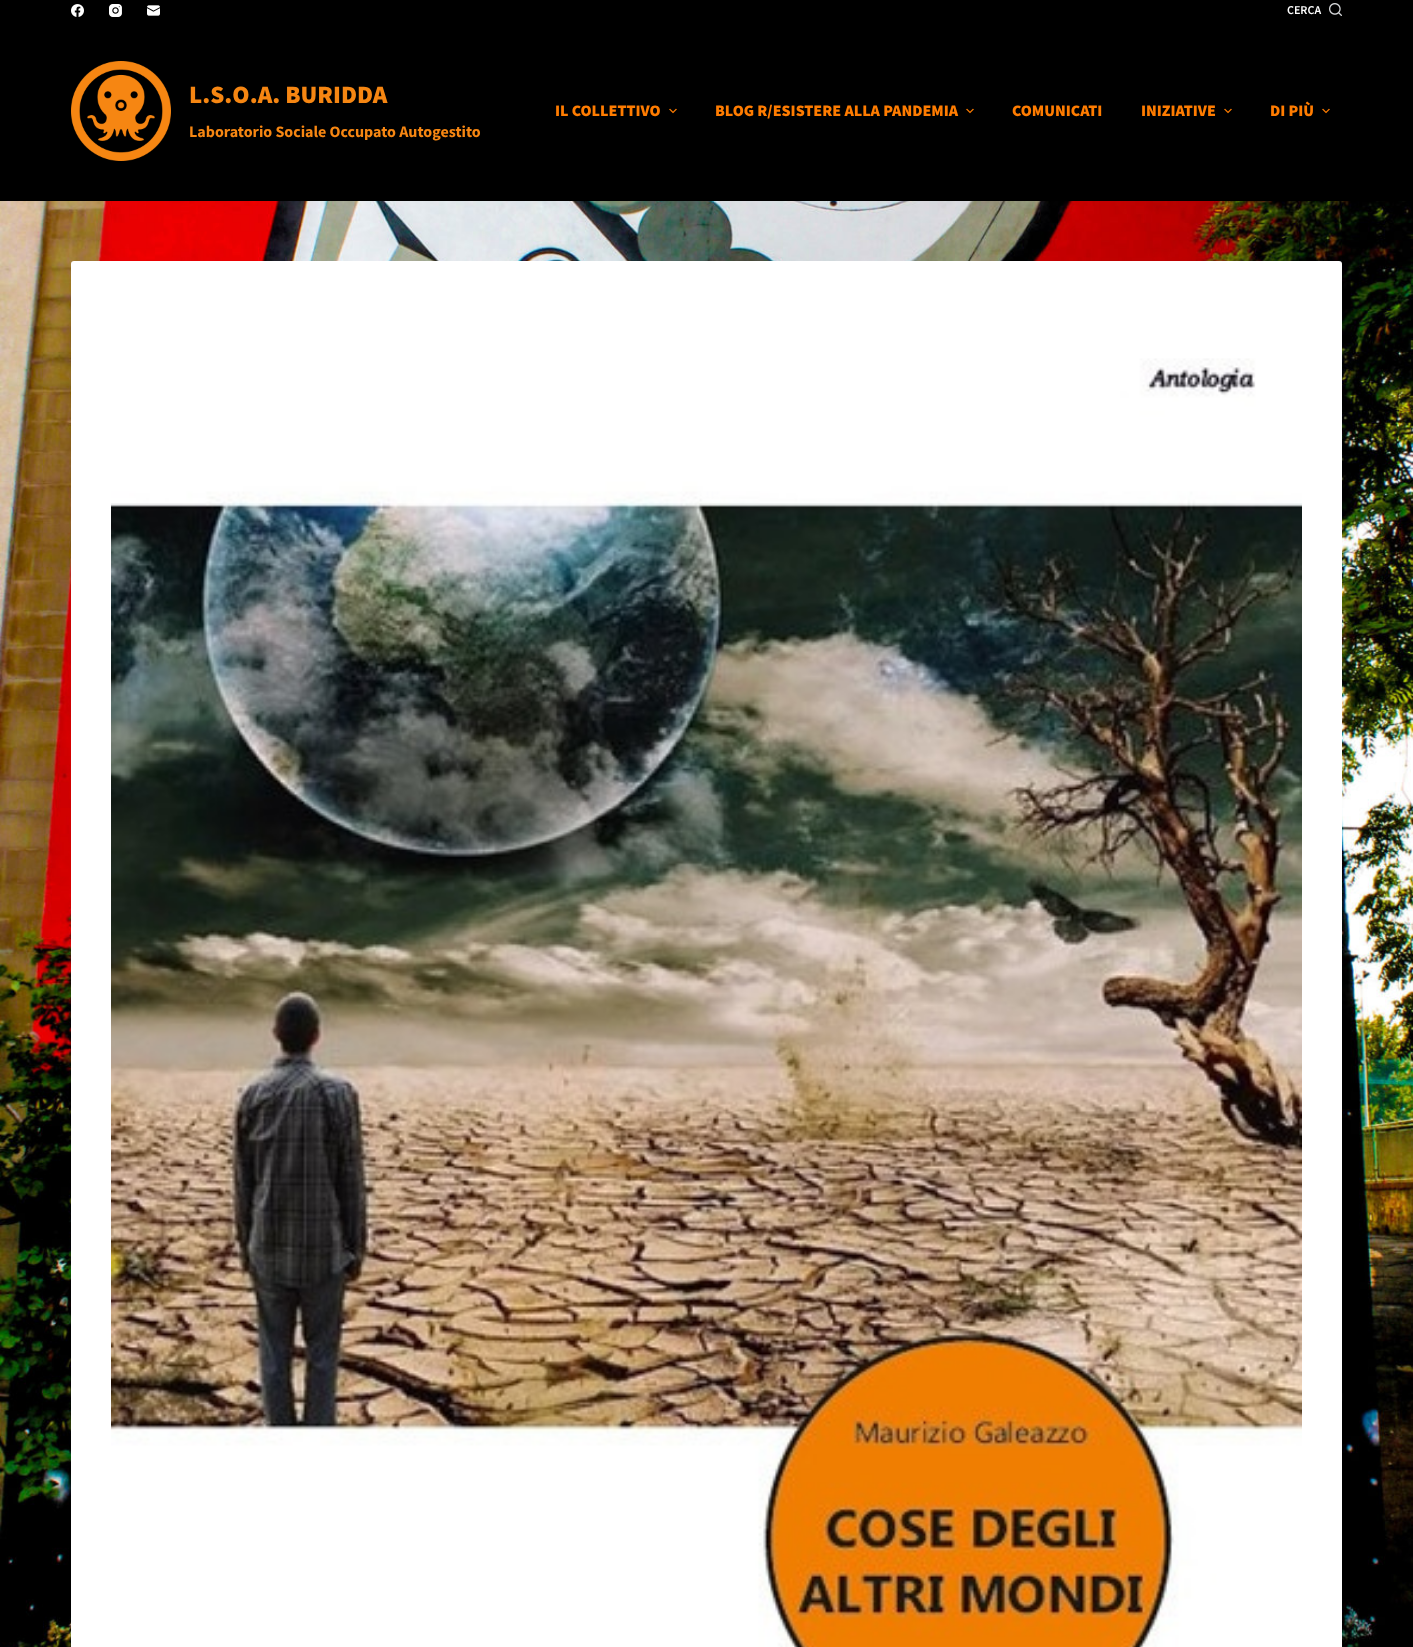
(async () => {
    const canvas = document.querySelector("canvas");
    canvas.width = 1413;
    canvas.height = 1647;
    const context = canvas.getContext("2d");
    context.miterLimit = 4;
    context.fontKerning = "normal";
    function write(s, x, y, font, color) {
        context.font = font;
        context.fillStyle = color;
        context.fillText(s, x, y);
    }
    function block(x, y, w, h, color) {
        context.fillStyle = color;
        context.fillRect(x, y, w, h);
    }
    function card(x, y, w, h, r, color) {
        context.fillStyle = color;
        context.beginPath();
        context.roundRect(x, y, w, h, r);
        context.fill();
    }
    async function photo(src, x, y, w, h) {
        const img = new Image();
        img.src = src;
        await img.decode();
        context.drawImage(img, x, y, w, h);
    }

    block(0, 0, 1413, 1647, "rgb(255, 255, 255)");
    await photo("media/1.png", 0, 201, 1413, 1446);
    block(0, 0, 1413, 201, "rgb(0, 0, 0)");
    await photo("media/2.png", 71, 4, 13, 13);
    await photo("media/3.png", 109, 4, 13, 13);
    await photo("media/4.png", 147, 5, 13, 11);
    write("CERCA", 1287, 14, "600 12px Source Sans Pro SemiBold", "rgb(255, 255, 255)");
    await photo("media/5.png", 1329, 3, 13, 13);
    await photo("media/6.png", 71, 61, 100, 100);
    write("L.S.O.A. BURIDDA", 189, 103, "900 25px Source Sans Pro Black", "rgb(246, 134, 18)");
    write("Laboratorio Sociale Occupato Autogestito", 189, 137, "bold 16px Source Sans Pro", "rgb(246, 134, 18)");
    write("IL COLLETTIVO", 555, 116, "900 16px Source Sans Pro Black", "rgb(255, 124, 0)");
    await photo("media/7.png", 669, 108, 8, 6);
    write("BLOG R/ESISTERE ALLA PANDEMIA", 715, 116, "900 16px Source Sans Pro Black", "rgb(255, 124, 0)");
    await photo("media/7.png", 966, 108, 8, 6);
    write("COMUNICATI", 1012, 116, "900 16px Source Sans Pro Black", "rgb(255, 124, 0)");
    write("INIZIATIVE", 1141, 116, "900 16px Source Sans Pro Black", "rgb(255, 124, 0)");
    await photo("media/7.png", 1224, 108, 8, 6);
    write("DI PIÙ", 1270, 116, "900 16px Source Sans Pro Black", "rgb(255, 124, 0)");
    await photo("media/7.png", 1322, 108, 8, 6);
    card(71, 261, 1271, 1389, 3, "rgb(255, 255, 255)");
    await photo("media/8.png", 111, 358, 1191, 1289);
})();
